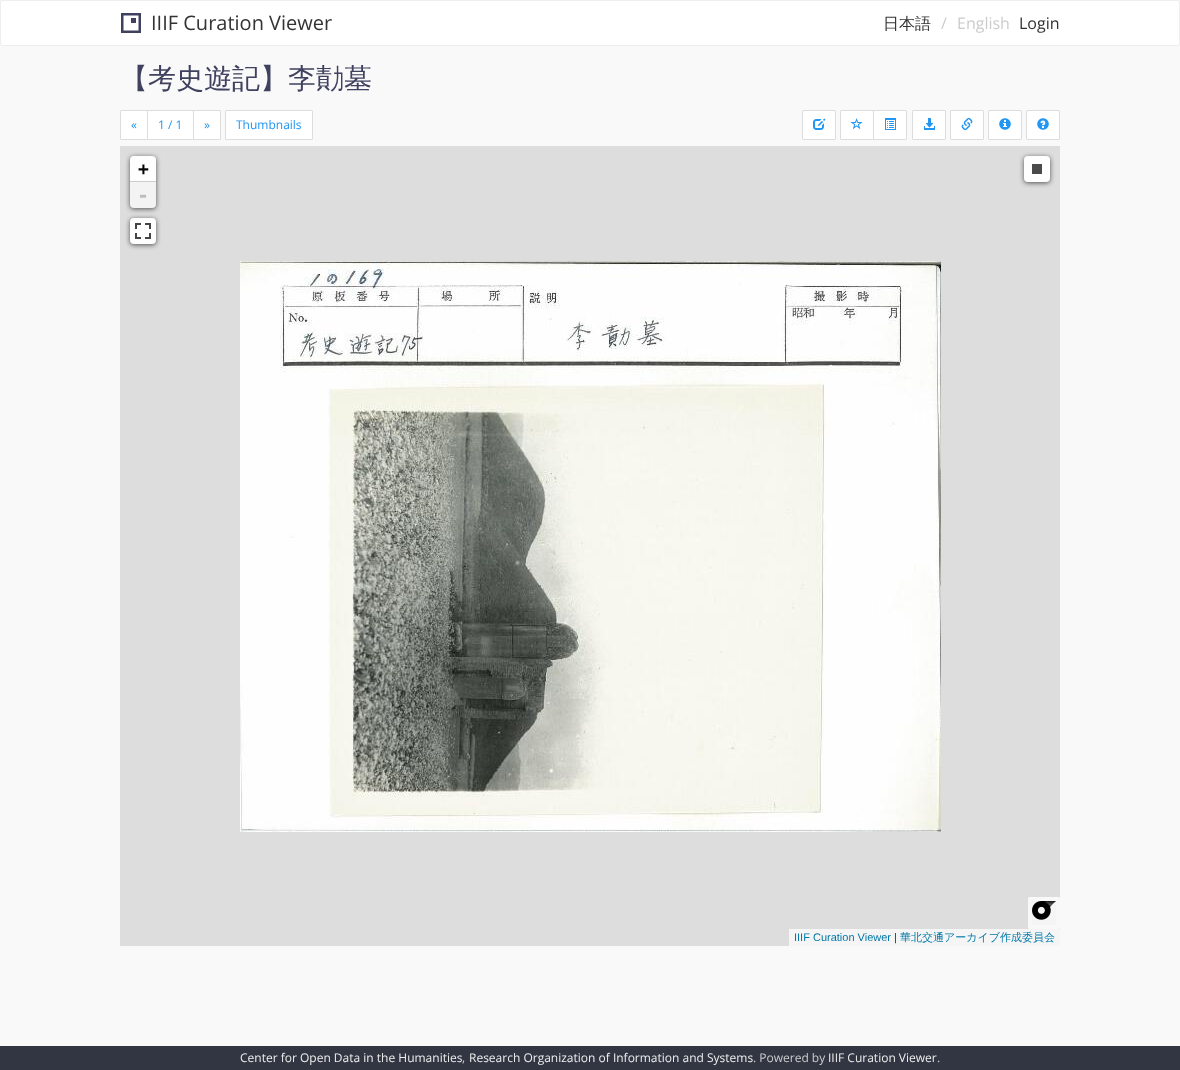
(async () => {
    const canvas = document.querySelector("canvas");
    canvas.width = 1180;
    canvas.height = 1070;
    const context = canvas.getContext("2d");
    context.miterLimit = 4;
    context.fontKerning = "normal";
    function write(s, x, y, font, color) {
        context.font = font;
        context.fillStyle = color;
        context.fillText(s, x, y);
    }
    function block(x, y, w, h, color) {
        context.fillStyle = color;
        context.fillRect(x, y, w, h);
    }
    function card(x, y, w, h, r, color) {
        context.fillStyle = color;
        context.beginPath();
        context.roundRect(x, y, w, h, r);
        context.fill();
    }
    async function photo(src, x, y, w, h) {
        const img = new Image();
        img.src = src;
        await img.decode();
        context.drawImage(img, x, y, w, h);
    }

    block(0, 0, 1180, 1070, "rgb(249, 249, 249)");
    context.fillStyle = "rgb(255, 255, 255)";
    context.beginPath();
    context.roundRect(0.5, 0.5, 1179, 45, 1.5);
    context.fill();
    context.strokeStyle = "rgb(238, 238, 238)";
    context.stroke();
    await photo("media/1.png", 121, 13, 20, 20);
    write("IIIF Curation Viewer", 151, 30, "20px Open Sans", "rgb(51, 51, 51)");
    write("日本語", 883, 29, "500 16px WenQuanYi Zen Hei", "rgb(51, 51, 51)");
    write("/", 941, 29, "16px Open Sans", "rgb(204, 204, 204)");
    write("English", 957, 29, "16px Open Sans", "rgb(204, 204, 204)");
    write("Login", 1019, 29, "16px Open Sans", "rgb(51, 51, 51)");
    write("【考史遊記】李勣墓", 120, 88, "500 28px WenQuanYi Zen Hei", "rgb(63, 65, 94)");
    context.fillStyle = "rgb(255, 255, 255)";
    context.beginPath();
    context.roundRect(120.5, 110.5, 27, 29, [0.5, 0, 0, 0.5]);
    context.fill();
    context.strokeStyle = "rgb(221, 221, 221)";
    context.stroke();
    write("«", 131, 129, "12px Open Sans", "rgb(33, 150, 243)");
    context.fillStyle = "rgb(255, 255, 255)";
    context.beginPath();
    context.rect(147.5, 110.5, 46, 29);
    context.fill();
    context.stroke();
    write("1 / 1", 158, 129, "12px Open Sans", "rgb(33, 150, 243)");
    context.fillStyle = "rgb(255, 255, 255)";
    context.beginPath();
    context.roundRect(193.5, 110.5, 27, 29, [0, 0.5, 0.5, 0]);
    context.fill();
    context.stroke();
    write("»", 204, 129, "12px Open Sans", "rgb(33, 150, 243)");
    context.fillStyle = "rgb(255, 255, 255)";
    context.beginPath();
    context.roundRect(225.5, 110.5, 87, 29, 0.5);
    context.fill();
    context.stroke();
    write("Thumbnails", 236, 129, "12px Open Sans", "rgb(33, 150, 243)");
    context.fillStyle = "rgb(255, 255, 255)";
    context.beginPath();
    context.roundRect(802.5, 110.5, 33, 29, 0.5);
    context.fill();
    context.stroke();
    await photo("media/2.png", 813, 118, 13, 12);
    context.beginPath();
    context.roundRect(840.5, 110.5, 33, 29, [0.5, 0, 0, 0.5]);
    context.fill();
    context.stroke();
    await photo("media/3.png", 850, 118, 13, 11);
    context.beginPath();
    context.roundRect(873.5, 110.5, 33, 29, [0, 0.5, 0.5, 0]);
    context.fill();
    context.stroke();
    await photo("media/4.png", 885, 118, 11, 12);
    context.beginPath();
    context.roundRect(912.5, 110.5, 33, 29, 0.5);
    context.fill();
    context.stroke();
    await photo("media/5.png", 924, 118, 11, 12);
    context.beginPath();
    context.roundRect(950.5, 110.5, 33, 29, 0.5);
    context.fill();
    context.stroke();
    await photo("media/6.png", 961, 117, 12, 14);
    context.beginPath();
    context.roundRect(988.5, 110.5, 33, 29, 0.5);
    context.fill();
    context.stroke();
    await photo("media/7.png", 999, 118, 12, 12);
    context.beginPath();
    context.roundRect(1026.5, 110.5, 33, 29, 0.5);
    context.fill();
    context.stroke();
    await photo("media/8.png", 1037, 118, 12, 12);
    block(120, 146, 940, 800, "rgb(221, 221, 221)");
    context.fillStyle = "rgba(5, 5, 5, 0.65)";
    context.filter = "blur(2.5px)";
    context.beginPath();
    context.roundRect(130, 157, 26, 52, 4);
    context.fill();
    context.filter = "none";
    context.fillStyle = "rgb(254, 254, 254)";
    context.beginPath();
    context.roundRect(130, 156, 26, 26, [4, 4, 0, 0]);
    context.fill();
    block(130, 181, 26, 1, "rgb(204, 204, 204)");
    write("+", 138, 175, "bold 18px DejaVu Sans Mono", "rgb(5, 5, 5)");
    context.fillStyle = "rgb(243, 243, 243)";
    context.beginPath();
    context.roundRect(130, 182, 26, 26, [0, 0, 4, 4]);
    context.fill();
    write("-", 137, 202, "bold 20px DejaVu Sans Mono", "rgb(188, 188, 188)");
    context.fillStyle = "rgba(5, 5, 5, 0.65)";
    context.filter = "blur(2.5px)";
    context.beginPath();
    context.roundRect(130, 219, 26, 26, 4);
    context.fill();
    context.filter = "none";
    card(130, 218, 26, 26, 4, "rgb(254, 254, 254)");
    await photo("media/9.png", 135, 223, 16, 16);
    context.fillStyle = "rgba(5, 5, 5, 0.65)";
    context.filter = "blur(2.5px)";
    context.beginPath();
    context.roundRect(1024, 157, 26, 26, 4);
    context.fill();
    context.filter = "none";
    card(1024, 156, 26, 26, 4, "rgb(254, 254, 254)");
    block(1032, 164, 10, 10, "rgb(74, 74, 74)");
    card(1028, 897, 32, 32, 2, "rgb(245, 245, 245)");
    await photo("media/10.png", 1032, 901, 24, 19);
    context.beginPath();
    context.rect(1030, 899, 28, 28);
    context.strokeStyle = "rgba(255, 255, 255, 0.3)";
    context.lineWidth = 4;
    context.stroke();
    block(789, 929, 271, 17, "rgb(245, 245, 245)");
    write("IIIF Curation Viewer", 794, 941, "11px Liberation Sans", "rgb(0, 120, 168)");
    write("|", 894, 941, "11px Liberation Sans", "rgb(51, 51, 51)");
    write("華北交通アーカイブ作成委員会", 900, 941, "500 11px WenQuanYi Zen Hei", "rgb(0, 120, 168)");
    await photo("media/11.png", 240, 261, 701, 571);
    block(0, 1046, 1180, 24, "rgb(49, 54, 66)");
    write("Center for Open Data in the Humanities", 240, 1062, "12px Open Sans", "rgb(238, 238, 238)");
    write(",", 462, 1062, "12px Open Sans", "rgb(204, 204, 204)");
    write("Research Organization of Information and Systems", 469, 1062, "12px Open Sans", "rgb(238, 238, 238)");
    write(". Powered by", 753, 1062, "12px Open Sans", "rgb(204, 204, 204)");
    write("IIIF Curation Viewer", 828, 1062, "12px Open Sans", "rgb(238, 238, 238)");
    write(".", 937, 1062, "12px Open Sans", "rgb(204, 204, 204)");
})();
